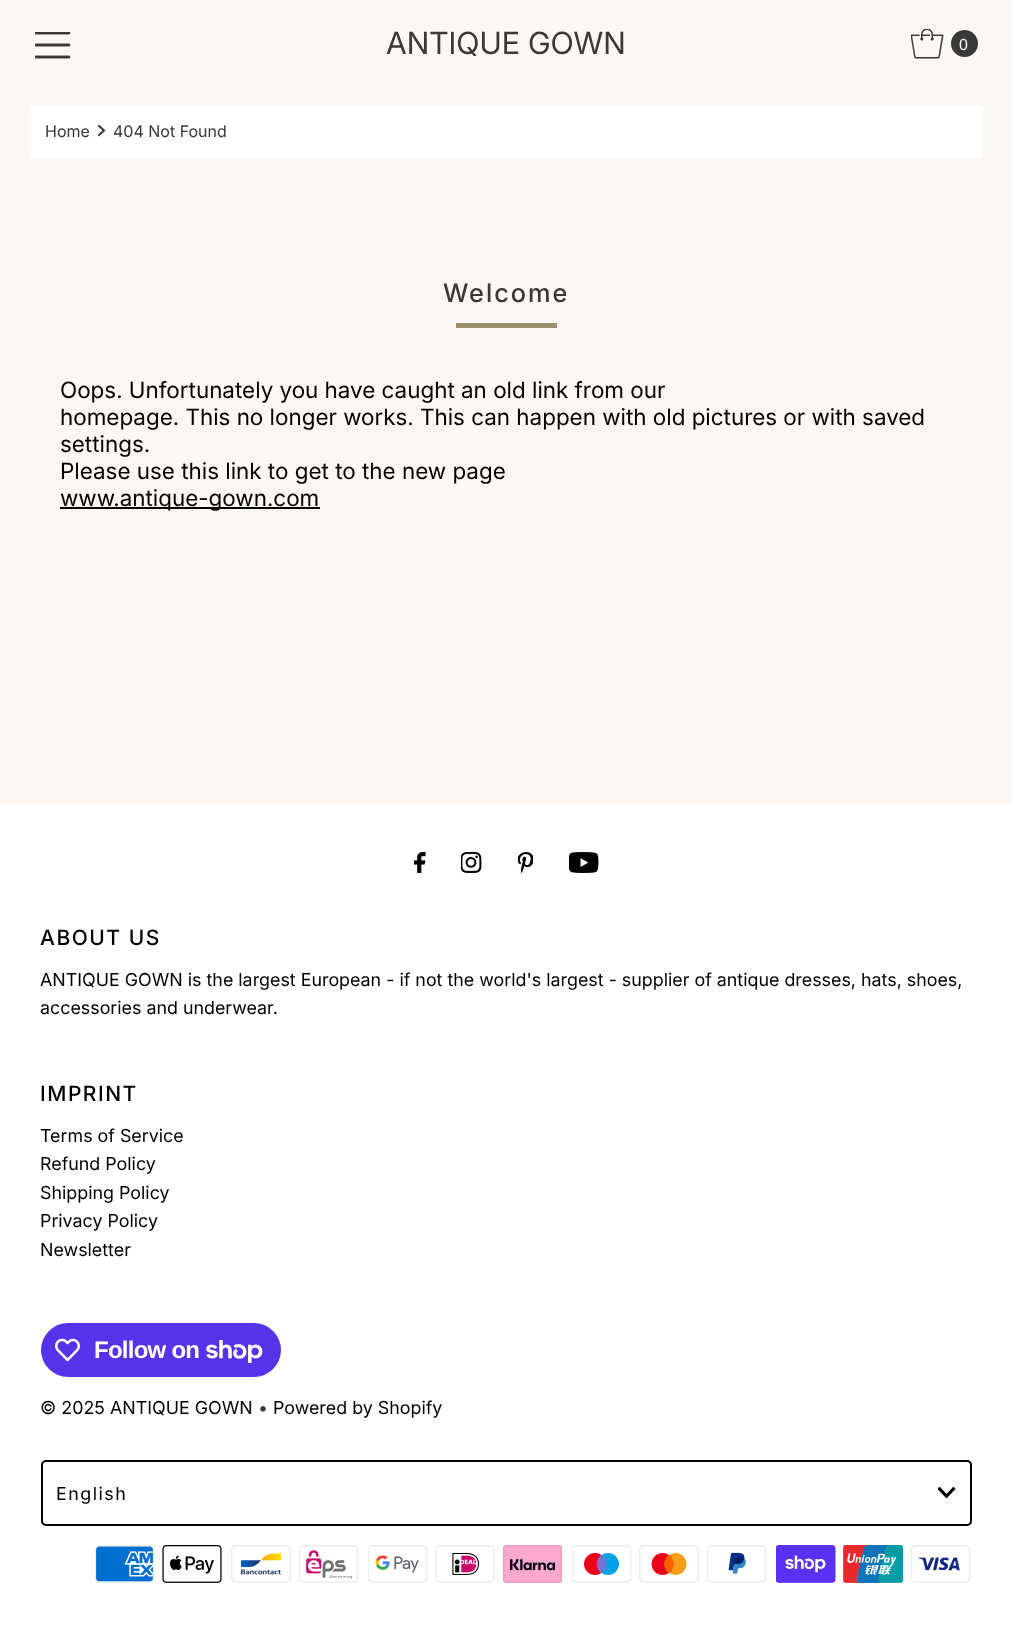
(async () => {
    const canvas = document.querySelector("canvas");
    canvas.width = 1012;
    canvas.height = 1641;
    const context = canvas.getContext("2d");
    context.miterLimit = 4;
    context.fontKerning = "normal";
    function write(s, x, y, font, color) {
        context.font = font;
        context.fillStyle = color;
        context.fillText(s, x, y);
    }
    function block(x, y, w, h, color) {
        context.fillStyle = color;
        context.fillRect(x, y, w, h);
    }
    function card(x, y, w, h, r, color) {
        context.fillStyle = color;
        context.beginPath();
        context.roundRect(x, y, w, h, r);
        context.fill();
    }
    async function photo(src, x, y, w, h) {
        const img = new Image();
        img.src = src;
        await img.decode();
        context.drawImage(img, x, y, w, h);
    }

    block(0, 0, 1012, 1641, "rgb(253, 247, 244)");
    await photo("media/1.png", 35, 32, 36, 27);
    write("ANTIQUE GOWN", 386, 54, "30.5px 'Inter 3'", "rgb(57, 57, 57)");
    await photo("media/2.png", 911, 29, 33, 30);
    context.beginPath();
    context.arc(964.5, 43.5, 13.5, 0, Math.PI * 2);
    context.fill();
    write("0", 959, 50, "16px Liberation Sans", "rgb(253, 247, 244)");
    block(30, 105, 953, 53, "rgb(255, 255, 255)");
    write("Home", 45, 137, "16px Inter", "rgb(57, 57, 57)");
    await photo("media/3.png", 98, 125, 8, 12);
    write("404 Not Found", 113, 137, "16px Inter", "rgb(57, 57, 57)");
    context.letterSpacing = "2px";
    write("Welcome", 443, 302, "500 25.5px Inter", "rgb(57, 57, 57)");
    block(456, 323, 101, 5, "rgb(159, 144, 112)");
    context.letterSpacing = "0px";
    write("Oops. Unfortunately you have caught an old link from our", 60, 398, "22.5px 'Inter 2'", "rgb(0, 0, 0)");
    write("homepage. This no longer works. This can happen with old pictures or with saved", 60, 425, "22.5px 'Inter 2'", "rgb(0, 0, 0)");
    write("settings.", 60, 452, "22.5px 'Inter 2'", "rgb(0, 0, 0)");
    write("Please use this link to get to the new page", 60, 479, "22.5px 'Inter 2'", "rgb(0, 0, 0)");
    block(60, 507, 260, 2, "rgb(0, 0, 0)");
    write("www.antique-gown.com", 60, 506, "22.5px 'Inter 2'", "rgb(0, 0, 0)");
    block(0, 803, 1012, 838, "rgb(255, 255, 255)");
    await photo("media/4.png", 414, 852, 12, 21);
    await photo("media/5.png", 461, 852, 21, 21);
    await photo("media/6.png", 518, 852, 15, 21);
    await photo("media/7.png", 569, 852, 30, 21);
    context.letterSpacing = "1.5px";
    write("ABOUT US", 40, 945, "500 21px 'Inter 2'", "rgb(0, 0, 0)");
    context.letterSpacing = "0px";
    write("ANTIQUE GOWN is the largest European - if not the world's largest - supplier of antique dresses, hats, shoes,", 40, 986, "17.85px Inter", "rgb(0, 0, 0)");
    write("accessories and underwear.", 40, 1014, "17.85px Inter", "rgb(0, 0, 0)");
    context.letterSpacing = "1.5px";
    write("IMPRINT", 40, 1101, "500 21px 'Inter 2'", "rgb(0, 0, 0)");
    context.letterSpacing = "0px";
    write("Terms of Service", 40, 1142, "17.85px Inter", "rgb(0, 0, 0)");
    write("Refund Policy", 40, 1170, "17.85px Inter", "rgb(0, 0, 0)");
    write("Shipping Policy", 40, 1199, "17.85px Inter", "rgb(0, 0, 0)");
    write("Privacy Policy", 40, 1227, "17.85px Inter", "rgb(0, 0, 0)");
    write("Newsletter", 40, 1256, "17.85px Inter", "rgb(0, 0, 0)");
    card(41, 1323, 240, 54, 27, "rgb(84, 51, 235)");
    await photo("media/8.png", 55, 1338, 25, 24);
    context.letterSpacing = "-0.75px";
    write("Follow on", 94, 1358, "bold 24px Liberation Sans", "rgb(255, 255, 255)");
    await photo("media/9.png", 206, 1340, 57, 23);
    context.letterSpacing = "0px";
    write("© 2025 ANTIQUE GOWN", 40, 1414, "17.85px Inter", "rgb(0, 0, 0)");
    write("•", 258, 1414, "17.85px Inter", "rgb(57, 57, 57)");
    write("Powered by Shopify", 273, 1414, "17.85px Inter", "rgb(0, 0, 0)");
    context.beginPath();
    context.roundRect(42, 1461, 929, 64, 4);
    context.strokeStyle = "rgb(0, 0, 0)";
    context.lineWidth = 2;
    context.stroke();
    context.letterSpacing = "1.5px";
    write("English", 56, 1500, "17.85px Inter", "rgb(0, 0, 0)");
    context.save();
    context.beginPath();
    context.rect(938, 1487, 18, 12);
    context.clip();
    context.beginPath();
    context.moveTo(953.5, 1486.5);
    context.lineTo(946.5, 1494);
    context.lineTo(939.5, 1486.5);
    context.lineTo(937.5, 1489);
    context.lineTo(946.5, 1498.5);
    context.lineTo(955.5, 1489);
    context.closePath();
    context.fill();
    context.restore();
    await photo("media/10.png", 95, 1545, 60, 38);
    await photo("media/11.png", 162, 1545, 60, 38);
    await photo("media/12.png", 231, 1545, 60, 38);
    await photo("media/13.png", 299, 1545, 60, 38);
    await photo("media/14.png", 368, 1545, 60, 38);
    await photo("media/15.png", 435, 1545, 60, 38);
    await photo("media/16.png", 503, 1545, 59, 38);
    await photo("media/17.png", 572, 1545, 60, 38);
    await photo("media/18.png", 639, 1545, 60, 38);
    await photo("media/19.png", 707, 1545, 60, 38);
    await photo("media/20.png", 776, 1545, 60, 38);
    await photo("media/21.png", 843, 1545, 60, 38);
    await photo("media/22.png", 911, 1545, 60, 38);
})();
